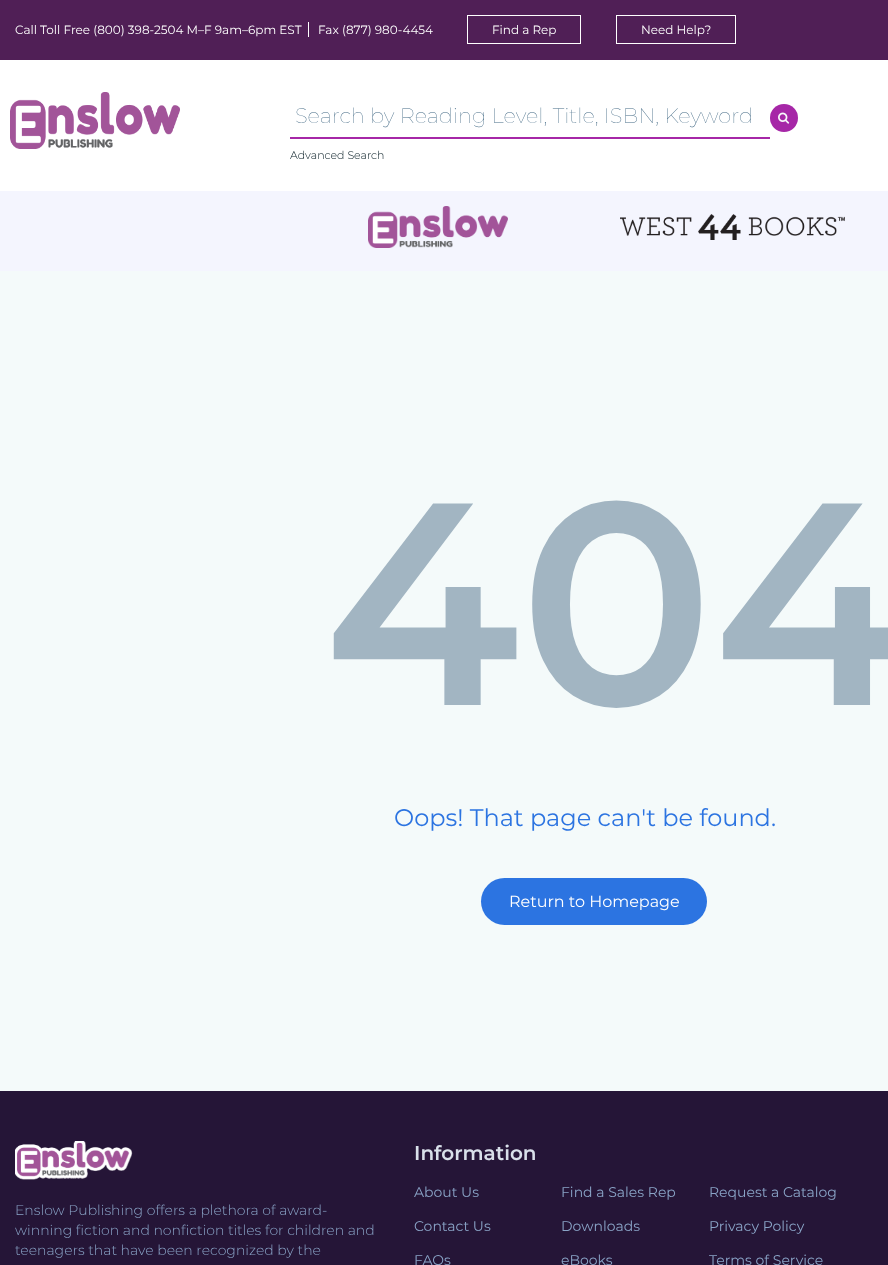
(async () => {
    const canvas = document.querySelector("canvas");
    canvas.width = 888;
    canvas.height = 1265;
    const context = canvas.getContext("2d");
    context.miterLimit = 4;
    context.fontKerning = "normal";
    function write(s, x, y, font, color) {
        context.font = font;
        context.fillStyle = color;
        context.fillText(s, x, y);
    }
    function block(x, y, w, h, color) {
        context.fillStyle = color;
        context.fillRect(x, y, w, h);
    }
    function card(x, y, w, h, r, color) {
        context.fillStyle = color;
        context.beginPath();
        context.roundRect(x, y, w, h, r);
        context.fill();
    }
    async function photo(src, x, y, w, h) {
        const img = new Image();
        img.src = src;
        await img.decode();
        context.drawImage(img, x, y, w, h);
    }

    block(0, 0, 888, 1265, "rgb(244, 250, 250)");
    block(0, 60, 888, 131, "rgb(255, 255, 255)");
    block(0, 0, 888, 60, "rgb(80, 31, 86)");
    write("Call Toll Free (800) 398-2504 M–F 9am–6pm EST", 15, 34, "12px Montserrat", "rgb(255, 255, 255)");
    block(308, 22, 1, 15, "rgb(255, 255, 255)");
    write("Fax (877) 980-4454", 318, 34, "12px Montserrat", "rgb(255, 255, 255)");
    context.strokeStyle = "rgb(255, 255, 255)";
    context.strokeRect(467.5, 15.5, 113, 28);
    write("Find a Rep", 492, 34, "12px Montserrat", "rgb(255, 255, 255)");
    context.strokeRect(616.5, 15.5, 119, 28);
    write("Need Help?", 641, 34, "12px Montserrat", "rgb(255, 255, 255)");
    await photo("media/1.png", 10, 92, 170, 57);
    block(290, 137, 480, 2, "rgb(166, 39, 167)");
    write("Search by Reading Level, Title, ISBN, Keyword", 295, 123, "100 21px Montserrat", "rgb(69, 107, 134)");
    context.fillStyle = "rgb(166, 39, 167)";
    context.beginPath();
    context.arc(784, 118, 14, 0, Math.PI * 2);
    context.fill();
    await photo("media/2.png", 778, 112, 12, 12);
    write("Advanced Search", 290, 159, "300 11px Montserrat", "rgb(0, 23, 31)");
    block(0, 191, 888, 80, "rgb(244, 245, 254)");
    await photo("media/3.png", 368, 206, 140, 42);
    await photo("media/4.png", 620, 214, 225, 26);
    write("404", 324, 705, "600 288px Montserrat", "rgb(162, 181, 194)");
    write("Oops! That page can't be found.", 394, 826, "24px Montserrat", "rgb(44, 116, 225)");
    card(481, 878, 226, 47, 23.5, "rgb(44, 116, 225)");
    write("Return to Homepage", 509, 907, "16px Montserrat", "rgb(255, 255, 255)");
    block(0, 1091, 888, 174, "rgb(37, 21, 55)");
    await photo("media/5.png", 15, 1141, 118, 39);
    write("Enslow Publishing offers a plethora of award-", 15, 1215, "300 14px Montserrat", "rgb(138, 164, 199)");
    write("winning fiction and nonfiction titles for children and", 15, 1235, "300 14px Montserrat", "rgb(138, 164, 199)");
    write("teenagers that have been recognized by the", 15, 1255, "300 14px Montserrat", "rgb(138, 164, 199)");
    write("Information", 414, 1160, "600 20px Montserrat", "rgb(217, 224, 234)");
    write("About Us", 414, 1197, "14px Montserrat", "rgb(138, 164, 199)");
    write("Find a Sales Rep", 561, 1197, "14px Montserrat", "rgb(138, 164, 199)");
    write("Request a Catalog", 709, 1197, "14px Montserrat", "rgb(138, 164, 199)");
    write("Contact Us", 414, 1231, "14px Montserrat", "rgb(138, 164, 199)");
    write("Downloads", 561, 1231, "14px Montserrat", "rgb(138, 164, 199)");
    write("Privacy Policy", 709, 1231, "14px Montserrat", "rgb(138, 164, 199)");
    write("FAQs", 414, 1265, "14px Montserrat", "rgb(138, 164, 199)");
    write("eBooks", 561, 1265, "14px Montserrat", "rgb(138, 164, 199)");
    write("Terms of Service", 709, 1265, "14px Montserrat", "rgb(138, 164, 199)");
})();
